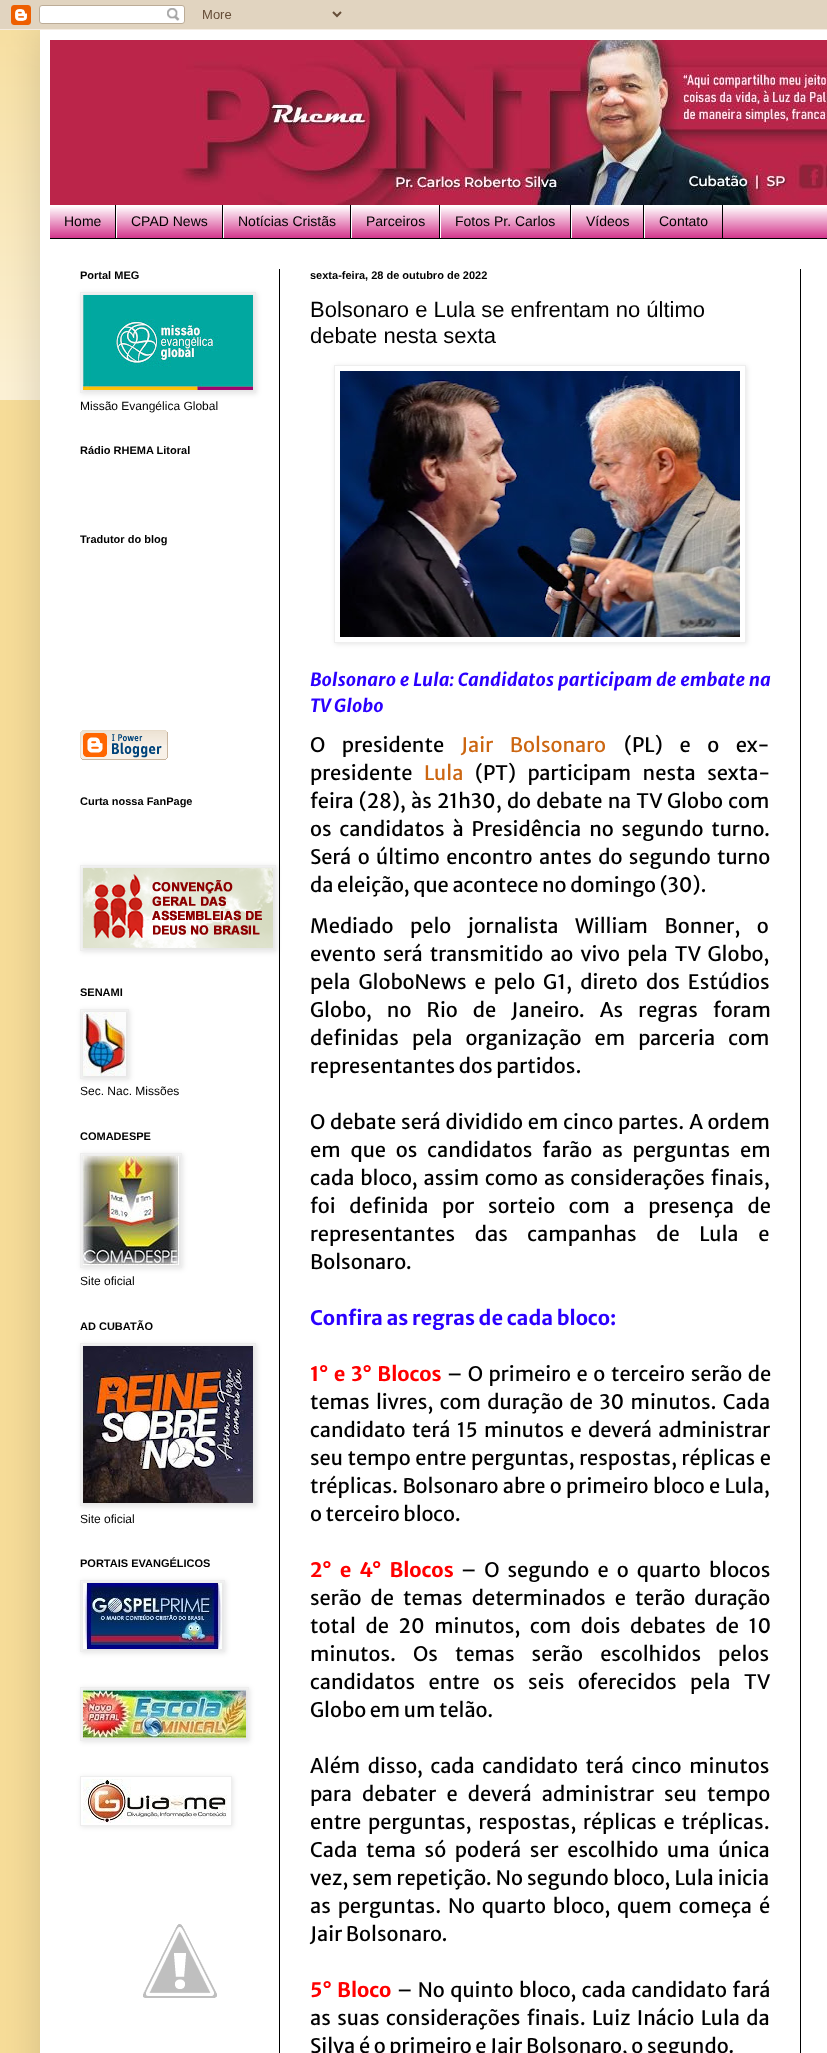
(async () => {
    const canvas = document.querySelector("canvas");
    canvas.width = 827;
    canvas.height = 2053;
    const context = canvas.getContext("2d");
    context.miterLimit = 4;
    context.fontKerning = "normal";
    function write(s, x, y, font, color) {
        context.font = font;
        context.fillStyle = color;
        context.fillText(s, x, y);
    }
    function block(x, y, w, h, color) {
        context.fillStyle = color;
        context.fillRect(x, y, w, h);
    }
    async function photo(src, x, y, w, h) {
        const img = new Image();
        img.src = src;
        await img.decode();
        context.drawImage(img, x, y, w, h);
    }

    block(0, 0, 827, 2053, "rgb(247, 221, 153)");
    await photo("media/2.png", 0, 30, 40, 370);
    context.fillStyle = "rgba(0, 0, 0, 0.15)";
    context.filter = "blur(20px)";
    context.beginPath();
    context.rect(40, 30, 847, 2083);
    context.fill();
    context.filter = "none";
    await photo("media/1.png", 0, 0, 827, 30);
    block(40, 30, 787, 2023, "rgb(255, 255, 255)");
    await photo("media/3.png", 50, 40, 777, 165);
    block(50, 206, 777, 32, "rgb(204, 17, 119)");
    await photo("media/4.png", 50, 205, 777, 33);
    block(50, 238, 777, 1, "rgb(0, 0, 0)");
    block(115, 205, 1, 33, "rgb(0, 0, 0)");
    write("Home", 64, 226, "14px Liberation Sans", "rgb(0, 0, 0)");
    block(222, 205, 1, 33, "rgb(0, 0, 0)");
    block(116, 205, 1, 33, "rgb(255, 255, 255)");
    write("CPAD News", 131, 226, "14px Liberation Sans", "rgb(0, 0, 0)");
    block(350, 205, 1, 33, "rgb(0, 0, 0)");
    block(223, 205, 1, 33, "rgb(255, 255, 255)");
    write("Notícias Cristãs", 238, 226, "14px Liberation Sans", "rgb(0, 0, 0)");
    block(439, 205, 1, 33, "rgb(0, 0, 0)");
    block(351, 205, 1, 33, "rgb(255, 255, 255)");
    write("Parceiros", 366, 226, "14px Liberation Sans", "rgb(0, 0, 0)");
    block(570, 205, 1, 33, "rgb(0, 0, 0)");
    block(440, 205, 1, 33, "rgb(255, 255, 255)");
    write("Fotos Pr. Carlos", 455, 226, "14px Liberation Sans", "rgb(0, 0, 0)");
    block(643, 205, 1, 33, "rgb(0, 0, 0)");
    block(571, 205, 1, 33, "rgb(255, 255, 255)");
    write("Vídeos", 586, 226, "14px Liberation Sans", "rgb(0, 0, 0)");
    block(722, 205, 1, 33, "rgb(0, 0, 0)");
    block(644, 205, 1, 33, "rgb(255, 255, 255)");
    write("Contato", 659, 226, "14px Liberation Sans", "rgb(0, 0, 0)");
    block(279, 269, 1, 1784, "rgb(0, 0, 0)");
    block(800, 269, 1, 1784, "rgb(0, 0, 0)");
    write("Portal MEG", 80, 279, "bold 11px Liberation Sans", "rgb(0, 0, 0)");
    context.fillStyle = "rgba(0, 0, 0, 0.1)";
    context.filter = "blur(2.5px)";
    context.beginPath();
    context.rect(81, 293, 176, 101);
    context.fill();
    context.filter = "none";
    context.strokeStyle = "rgb(238, 238, 238)";
    context.strokeRect(80.5, 292.5, 175, 100);
    await photo("media/5.png", 83, 295, 170, 95);
    write("Missão Evangélica Global", 80, 410, "12px Liberation Sans", "rgb(0, 0, 0)");
    write("Rádio RHEMA Litoral", 80, 454, "bold 11px Liberation Sans", "rgb(0, 0, 0)");
    write("Tradutor do blog", 80, 543, "bold 11px Liberation Sans", "rgb(0, 0, 0)");
    await photo("media/6.png", 80, 730, 88, 30);
    write("Curta nossa FanPage", 80, 805, "bold 11px Liberation Sans", "rgb(0, 0, 0)");
    context.fillStyle = "rgba(0, 0, 0, 0.1)";
    context.filter = "blur(2.5px)";
    context.beginPath();
    context.rect(81, 866, 196, 86);
    context.fill();
    context.filter = "none";
    context.strokeRect(80.5, 865.5, 195, 85);
    await photo("media/7.png", 83, 868, 190, 80);
    write("SENAMI", 80, 996, "bold 11px Liberation Sans", "rgb(0, 0, 0)");
    context.fillStyle = "rgba(0, 0, 0, 0.1)";
    context.filter = "blur(2.5px)";
    context.beginPath();
    context.rect(81, 1010, 49, 70);
    context.fill();
    context.filter = "none";
    context.strokeRect(80.5, 1009.5, 48, 69);
    await photo("media/8.png", 83, 1012, 43, 64);
    write("Sec. Nac. Missões", 80, 1095, "12px Liberation Sans", "rgb(0, 0, 0)");
    write("COMADESPE", 80, 1140, "bold 11px Liberation Sans", "rgb(0, 0, 0)");
    context.fillStyle = "rgba(0, 0, 0, 0.1)";
    context.filter = "blur(2.5px)";
    context.beginPath();
    context.rect(81, 1154, 102, 115);
    context.fill();
    context.filter = "none";
    context.strokeRect(80.5, 1153.5, 101, 114);
    await photo("media/9.png", 83, 1156, 96, 109);
    write("Site oficial", 80, 1285, "12px Liberation Sans", "rgb(0, 0, 0)");
    write("AD CUBATÃO", 80, 1330, "bold 11px Liberation Sans", "rgb(0, 0, 0)");
    context.fillStyle = "rgba(0, 0, 0, 0.1)";
    context.filter = "blur(2.5px)";
    context.beginPath();
    context.rect(81, 1344, 176, 163);
    context.fill();
    context.filter = "none";
    context.strokeRect(80.5, 1343.5, 175, 162);
    await photo("media/10.png", 83, 1346, 170, 157);
    write("Site oficial", 80, 1523, "12px Liberation Sans", "rgb(0, 0, 0)");
    write("PORTAIS EVANGÉLICOS", 80, 1567, "bold 11px Liberation Sans", "rgb(0, 0, 0)");
    context.fillStyle = "rgba(0, 0, 0, 0.1)";
    context.filter = "blur(2.5px)";
    context.beginPath();
    context.rect(81, 1581, 145, 72);
    context.fill();
    context.filter = "none";
    context.strokeRect(80.5, 1580.5, 144, 71);
    await photo("media/11.png", 83, 1583, 139, 66);
    context.filter = "blur(2.5px)";
    context.beginPath();
    context.rect(81, 1688, 169, 54);
    context.fill();
    context.filter = "none";
    context.strokeRect(80.5, 1687.5, 168, 53);
    await photo("media/12.png", 83, 1690, 163, 48);
    context.save();
    context.beginPath();
    context.moveTo(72, 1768);
    context.lineTo(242, 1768);
    context.lineTo(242, 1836);
    context.lineTo(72, 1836);
    context.closePath();
    context.moveTo(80, 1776);
    context.lineTo(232, 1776);
    context.lineTo(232, 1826);
    context.lineTo(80, 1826);
    context.closePath();
    context.clip("evenodd");
    context.filter = "blur(2.5px)";
    context.beginPath();
    context.rect(81, 1777, 152, 50);
    context.fill();
    context.filter = "none";
    context.restore();
    context.strokeRect(80.5, 1776.5, 151, 49);
    await photo("media/13.png", 83, 1779, 144, 44);
    await photo("media/14.png", 143, 1924, 74, 74);
    write("sexta-feira, 28 de outubro de 2022", 310, 279, "bold 11px Liberation Sans", "rgb(0, 0, 0)");
    write("Bolsonaro e Lula se enfrentam no último", 310, 317, "22px Liberation Sans", "rgb(0, 0, 0)");
    write("debate nesta sexta", 310, 343, "22px Liberation Sans", "rgb(0, 0, 0)");
    context.save();
    context.beginPath();
    context.moveTo(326, 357);
    context.lineTo(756, 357);
    context.lineTo(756, 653);
    context.lineTo(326, 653);
    context.closePath();
    context.moveTo(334, 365);
    context.lineTo(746, 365);
    context.lineTo(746, 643);
    context.lineTo(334, 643);
    context.closePath();
    context.clip("evenodd");
    context.fillStyle = "rgba(0, 0, 0, 0.1)";
    context.filter = "blur(2.5px)";
    context.beginPath();
    context.rect(335, 366, 412, 278);
    context.fill();
    context.filter = "none";
    context.restore();
    context.strokeRect(334.5, 365.5, 411, 277);
    await photo("media/15.png", 340, 371, 400, 266);
    context.wordSpacing = "0.5px";
    write("Bolsonaro e Lula: Candidatos participam de embate na", 310, 686, "italic bold 18px Merriweather Sans", "rgb(43, 0, 254)");
    context.wordSpacing = "0px";
    write("TV Globo", 310, 712, "italic bold 18px Merriweather Sans", "rgb(43, 0, 254)");
    context.wordSpacing = "13px";
    write("O presidente", 310, 752, "20px Merriweather Sans", "rgb(0, 0, 0)");
    write("Jair Bolsonaro", 461, 752, "20px Merriweather Sans", "rgb(204, 102, 17)");
    write("(PL) e o ex-", 624, 752, "20px Merriweather Sans", "rgb(0, 0, 0)");
    context.wordSpacing = "0px";
    write("presidente", 310, 780, "20px Merriweather Sans", "rgb(0, 0, 0)");
    write("Lula", 424, 780, "20px Merriweather Sans", "rgb(204, 102, 17)");
    context.wordSpacing = "8px";
    write("(PT) participam nesta sexta-", 475, 780, "20px Merriweather Sans", "rgb(0, 0, 0)");
    context.wordSpacing = "1.5px";
    write("feira (28), às 21h30, do debate na TV Globo com", 310, 808, "20px Merriweather Sans", "rgb(0, 0, 0)");
    context.wordSpacing = "4.25px";
    write("os candidatos à Presidência no segundo turno.", 310, 836, "20px Merriweather Sans", "rgb(0, 0, 0)");
    context.wordSpacing = "2.75px";
    write("Será o último encontro antes do segundo turno", 310, 864, "20px Merriweather Sans", "rgb(0, 0, 0)");
    context.wordSpacing = "0px";
    write("da eleição, que acontece no domingo (30).", 310, 892, "20px Merriweather Sans", "rgb(0, 0, 0)");
    context.wordSpacing = "13px";
    write("Mediado pelo jornalista William Bonner, o", 310, 933, "20px Merriweather Sans", "rgb(0, 0, 0)");
    context.wordSpacing = "3.5px";
    write("evento será transmitido ao vivo pela TV Globo,", 310, 961, "20px Merriweather Sans", "rgb(0, 0, 0)");
    context.wordSpacing = "4.5px";
    write("pela GloboNews e pelo G1, direto dos Estúdios", 310, 989, "20px Merriweather Sans", "rgb(0, 0, 0)");
    context.wordSpacing = "11.5px";
    write("Globo, no Rio de Janeiro. As regras foram", 310, 1017, "20px Merriweather Sans", "rgb(0, 0, 0)");
    context.wordSpacing = "9.5px";
    write("definidas pela organização em parceria com", 310, 1045, "20px Merriweather Sans", "rgb(0, 0, 0)");
    context.wordSpacing = "0px";
    write("representantes dos partidos.", 310, 1073, "20px Merriweather Sans", "rgb(0, 0, 0)");
    context.wordSpacing = "1.25px";
    write("O debate será dividido em cinco partes. A ordem", 310, 1129, "20px Merriweather Sans", "rgb(0, 0, 0)");
    context.wordSpacing = "6.25px";
    write("em que os candidatos farão as perguntas em", 310, 1157, "20px Merriweather Sans", "rgb(0, 0, 0)");
    context.wordSpacing = "2.25px";
    write("cada bloco, assim como as considerações finais,", 310, 1185, "20px Merriweather Sans", "rgb(0, 0, 0)");
    context.wordSpacing = "10px";
    write("foi definida por sorteio com a presença de", 310, 1213, "20px Merriweather Sans", "rgb(0, 0, 0)");
    context.wordSpacing = "16px";
    write("representantes das campanhas de Lula e", 310, 1241, "20px Merriweather Sans", "rgb(0, 0, 0)");
    context.wordSpacing = "0px";
    write("Bolsonaro.", 310, 1269, "20px Merriweather Sans", "rgb(0, 0, 0)");
    write("Confira as regras de cada bloco:", 310, 1325, "bold 20px Merriweather Sans", "rgb(43, 0, 254)");
    context.wordSpacing = "2px";
    write("1° e 3° Blocos", 310, 1381, "bold 20px Merriweather Sans", "rgb(255, 0, 0)");
    write("– O primeiro e o terceiro serão de", 447, 1381, "20px Merriweather Sans", "rgb(0, 0, 0)");
    context.wordSpacing = "2.75px";
    write("temas livres, com duração de 30 minutos. Cada", 310, 1409, "20px Merriweather Sans", "rgb(0, 0, 0)");
    write("candidato terá 15 minutos e deverá administrar", 310, 1437, "20px Merriweather Sans", "rgb(0, 0, 0)");
    context.wordSpacing = "1px";
    write("seu tempo entre perguntas, respostas, réplicas e", 310, 1465, "20px Merriweather Sans", "rgb(0, 0, 0)");
    context.wordSpacing = "0.75px";
    write("tréplicas. Bolsonaro abre o primeiro bloco e Lula,", 310, 1493, "20px Merriweather Sans", "rgb(0, 0, 0)");
    context.wordSpacing = "0px";
    write("o terceiro bloco.", 310, 1521, "20px Merriweather Sans", "rgb(0, 0, 0)");
    context.wordSpacing = "4.5px";
    write("2° e 4° Blocos", 310, 1577, "bold 20px Merriweather Sans", "rgb(255, 0, 0)");
    write("– O segundo e o quarto blocos", 461, 1577, "20px Merriweather Sans", "rgb(0, 0, 0)");
    context.wordSpacing = "5.5px";
    write("serão de temas determinados e terão duração", 310, 1605, "20px Merriweather Sans", "rgb(0, 0, 0)");
    context.wordSpacing = "6px";
    write("total de 20 minutos, com dois debates de 10", 310, 1633, "20px Merriweather Sans", "rgb(0, 0, 0)");
    context.wordSpacing = "13.5px";
    write("minutos. Os temas serão escolhidos pelos", 310, 1661, "20px Merriweather Sans", "rgb(0, 0, 0)");
    context.wordSpacing = "9.75px";
    write("candidatos entre os seis oferecidos pela TV", 310, 1689, "20px Merriweather Sans", "rgb(0, 0, 0)");
    context.wordSpacing = "0px";
    write("Globo em um telão.", 310, 1717, "20px Merriweather Sans", "rgb(0, 0, 0)");
    context.wordSpacing = "4px";
    write("Além disso, cada candidato terá cinco minutos", 310, 1773, "20px Merriweather Sans", "rgb(0, 0, 0)");
    context.wordSpacing = "6.5px";
    write("para debater e deverá administrar seu tempo", 310, 1801, "20px Merriweather Sans", "rgb(0, 0, 0)");
    context.wordSpacing = "3.25px";
    write("entre perguntas, respostas, réplicas e tréplicas.", 310, 1829, "20px Merriweather Sans", "rgb(0, 0, 0)");
    context.wordSpacing = "5px";
    write("Cada tema só poderá ser escolhido uma única", 310, 1857, "20px Merriweather Sans", "rgb(0, 0, 0)");
    context.wordSpacing = "0.5px";
    write("vez, sem repetição. No segundo bloco, Lula inicia", 310, 1885, "20px Merriweather Sans", "rgb(0, 0, 0)");
    context.wordSpacing = "3.25px";
    write("as perguntas. No quarto bloco, quem começa é", 310, 1913, "20px Merriweather Sans", "rgb(0, 0, 0)");
    context.wordSpacing = "0px";
    write("Jair Bolsonaro.", 310, 1941, "20px Merriweather Sans", "rgb(0, 0, 0)");
    context.wordSpacing = "1.75px";
    write("5° Bloco", 310, 1997, "bold 20px Merriweather Sans", "rgb(255, 0, 0)");
    write("– No quinto bloco, cada candidato fará", 397, 1997, "20px Merriweather Sans", "rgb(0, 0, 0)");
    context.wordSpacing = "2.75px";
    write("as suas considerações finais. Luiz Inácio Lula da", 310, 2025, "20px Merriweather Sans", "rgb(0, 0, 0)");
    context.wordSpacing = "0px";
    write("Silva é o primeiro e Jair Bolsonaro, o segundo.", 310, 2053, "20px Merriweather Sans", "rgb(0, 0, 0)");
})();
